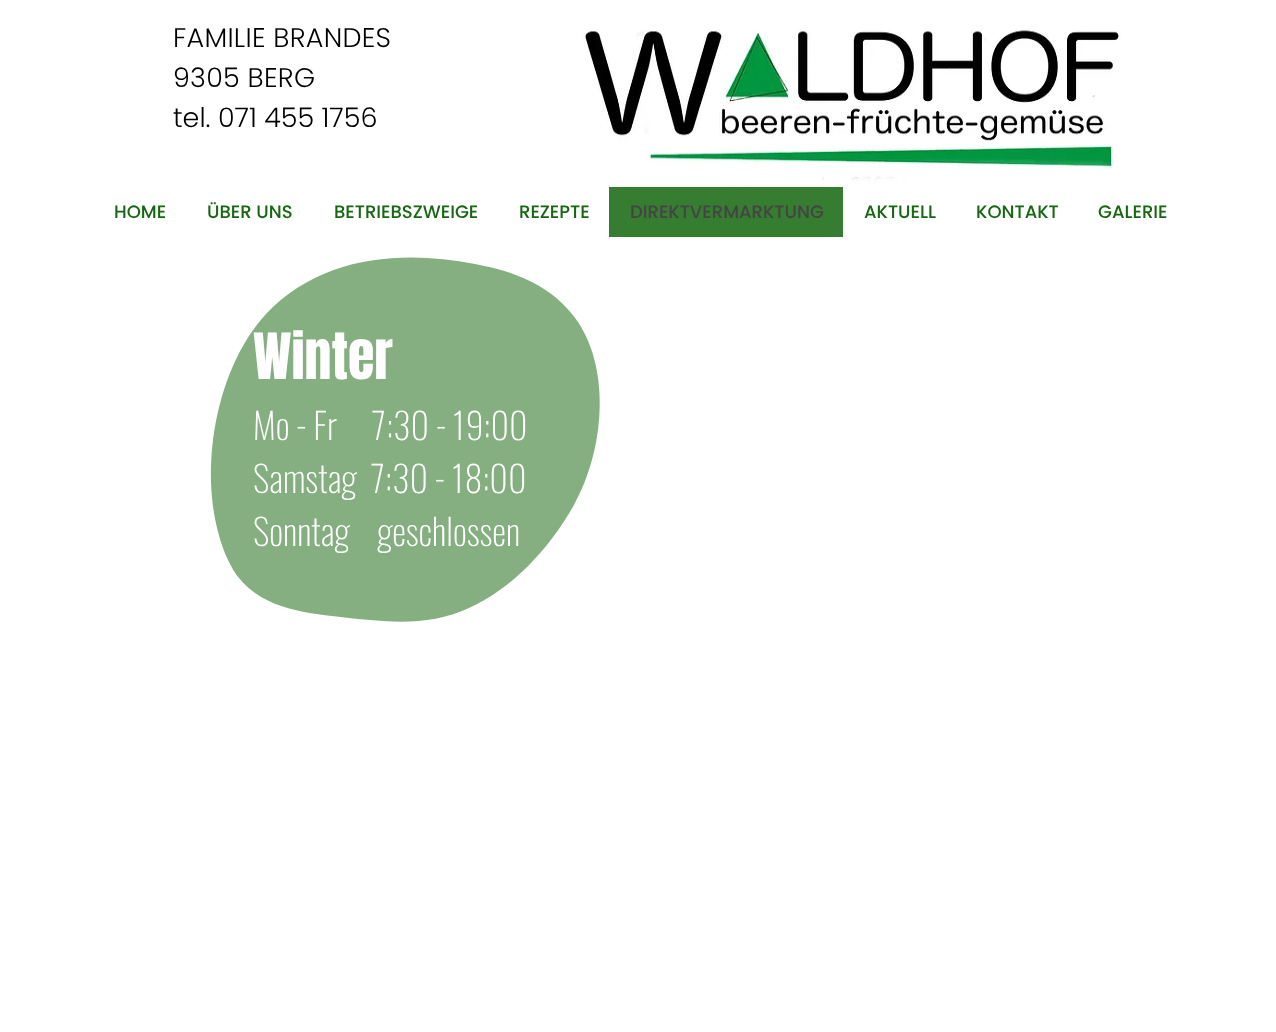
(async () => {
    const canvas = document.querySelector("canvas");
    canvas.width = 1276;
    canvas.height = 1032;
    const context = canvas.getContext("2d");
    context.miterLimit = 4;
    context.fontKerning = "normal";
    function write(s, x, y, font, color) {
        context.font = font;
        context.fillStyle = color;
        context.fillText(s, x, y);
    }
    function block(x, y, w, h, color) {
        context.fillStyle = color;
        context.fillRect(x, y, w, h);
    }
    async function photo(src, x, y, w, h) {
        const img = new Image();
        img.src = src;
        await img.decode();
        context.drawImage(img, x, y, w, h);
    }

    block(0, 0, 1276, 1032, "rgb(255, 255, 255)");
    context.letterSpacing = "0.25px";
    write("FAMILIE BRANDES", 173, 47, "300 27px Poppins", "rgb(0, 0, 0)");
    write("9305 BERG", 173, 87, "300 27px Poppins", "rgb(0, 0, 0)");
    context.letterSpacing = "0px";
    write("tel. 071 455 1756", 173, 127, "300 27px Poppins", "rgb(0, 0, 0)");
    await photo("media/1.png", 582, 29, 539, 158);
    write("HOME", 114, 218, "500 18px Poppins", "rgb(22, 104, 16)");
    write("ÜBER UNS", 207, 218, "500 18px Poppins", "rgb(22, 104, 16)");
    write("BETRIEBSZWEIGE", 334, 218, "500 18px Poppins", "rgb(22, 104, 16)");
    write("REZEPTE", 519, 218, "500 18px Poppins", "rgb(22, 104, 16)");
    block(609, 187, 234, 50, "rgb(55, 125, 49)");
    write("DIREKTVERMARKTUNG", 630, 218, "500 18px Poppins", "rgb(68, 68, 68)");
    write("AKTUELL", 864, 218, "500 18px Poppins", "rgb(22, 104, 16)");
    write("KONTAKT", 976, 218, "500 18px Poppins", "rgb(22, 104, 16)");
    write("GALERIE", 1098, 218, "500 18px Poppins", "rgb(22, 104, 16)");
    context.fillStyle = "rgb(133, 175, 129)";
    context.beginPath();
    context.moveTo(383, 621);
    context.bezierCurveTo(412, 623, 441, 621, 469, 608);
    context.bezierCurveTo(511, 589, 548, 551, 574, 505);
    context.bezierCurveTo(604, 451, 611, 372, 578, 322);
    context.bezierCurveTo(553, 285, 513, 271, 475, 264);
    context.bezierCurveTo(403, 250, 322, 255, 266, 314);
    context.bezierCurveTo(214, 370, 193, 485, 229, 562);
    context.bezierCurveTo(249, 605, 297, 612, 332, 616);
    context.bezierCurveTo(349, 618, 366, 620, 383, 621);
    context.closePath();
    context.fill();
    write("Winter", 253, 379, "54px Anton", "rgb(255, 255, 255)");
    write("Mo - Fr     7:30 - 19:00", 253, 440, "200 36px Oswald", "rgb(255, 255, 255)");
    write("Samstag  7:30 - 18:00", 253, 493, "200 36px Oswald", "rgb(255, 255, 255)");
    write("Sonntag    geschlossen", 253, 546, "200 36px Oswald", "rgb(255, 255, 255)");
})();
